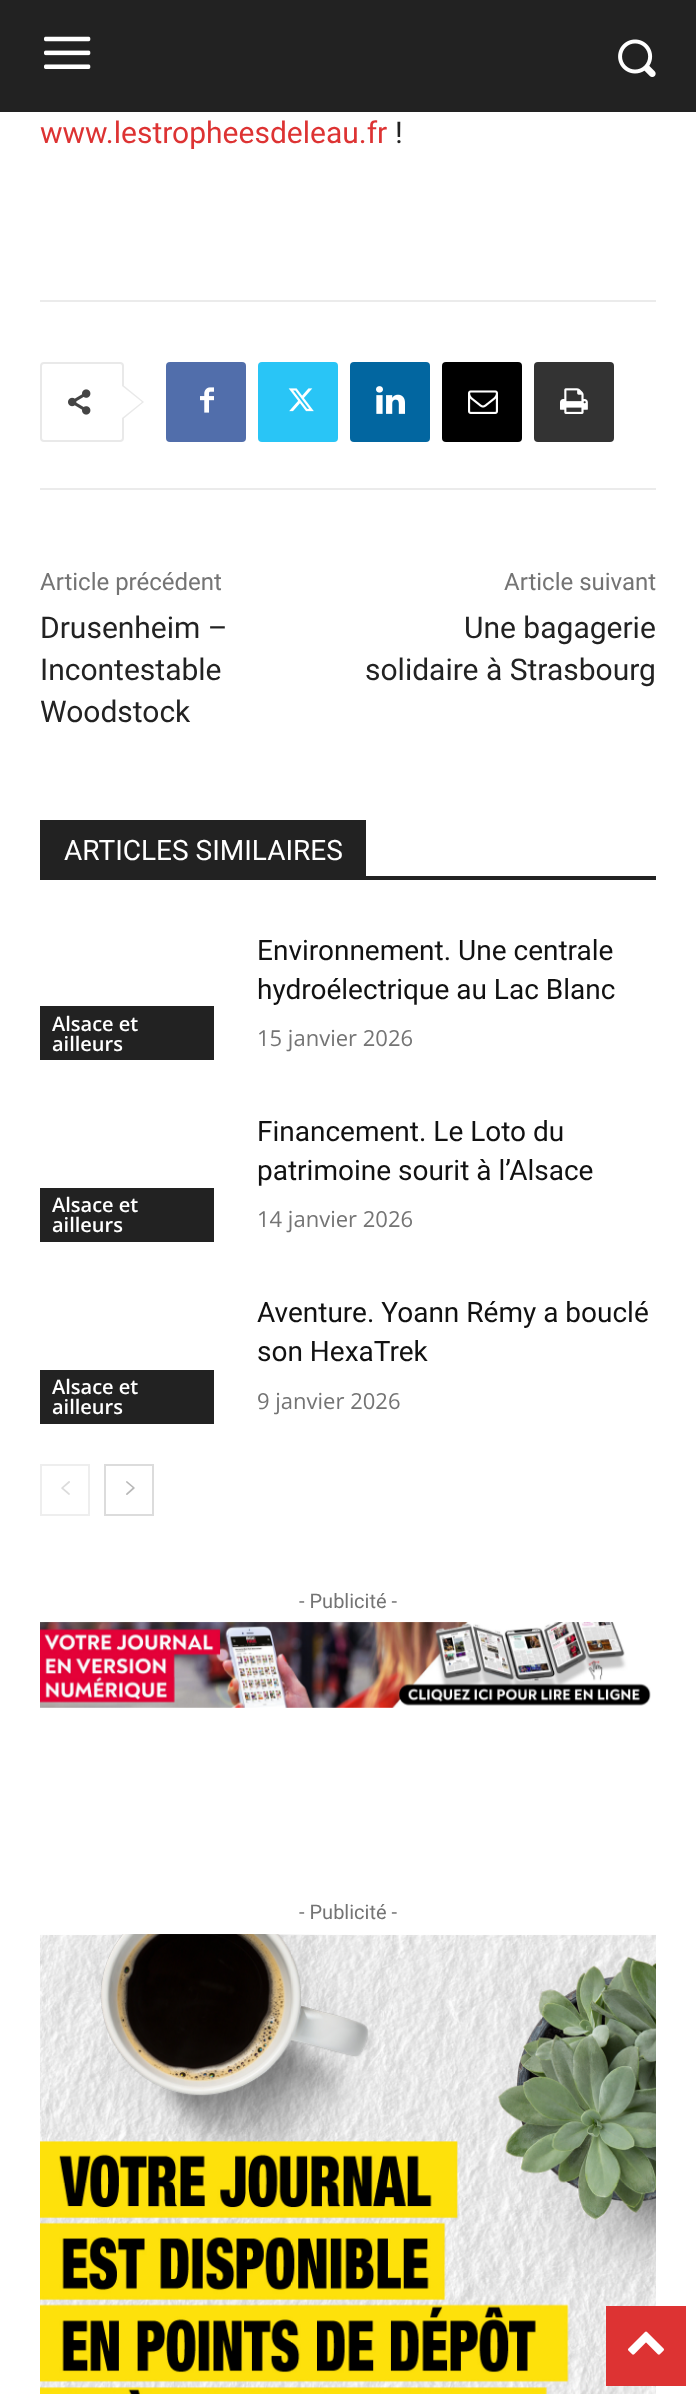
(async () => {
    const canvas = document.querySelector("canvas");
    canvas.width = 696;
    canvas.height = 2394;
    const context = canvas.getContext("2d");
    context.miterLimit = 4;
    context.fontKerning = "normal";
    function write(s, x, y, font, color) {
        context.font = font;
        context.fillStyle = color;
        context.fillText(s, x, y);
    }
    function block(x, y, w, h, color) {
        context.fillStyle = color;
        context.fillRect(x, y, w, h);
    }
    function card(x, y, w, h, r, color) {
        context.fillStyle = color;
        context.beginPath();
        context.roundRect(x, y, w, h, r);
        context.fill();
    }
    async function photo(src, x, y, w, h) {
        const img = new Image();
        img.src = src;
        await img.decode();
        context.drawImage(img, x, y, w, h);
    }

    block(0, 0, 696, 2394, "rgb(255, 255, 255)");
    block(0, 0, 696, 112, "rgb(34, 34, 34)");
    await photo("media/1.png", 44, 36, 47, 33);
    await photo("media/2.png", 618, 39, 38, 38);
    write("www.lestropheesdeleau.fr", 40, 143, "30px Roboto", "rgb(221, 51, 51)");
    write("!", 395, 143, "30px Roboto", "rgb(34, 34, 34)");
    block(40, 300, 616, 2, "rgb(235, 235, 235)");
    context.beginPath();
    context.roundRect(41, 363, 82, 78, 3);
    context.strokeStyle = "rgb(233, 233, 233)";
    context.lineWidth = 2;
    context.stroke();
    context.fillStyle = "rgb(233, 233, 233)";
    context.beginPath();
    context.moveTo(122, 420);
    context.lineTo(122, 384);
    context.lineTo(144, 402);
    context.closePath();
    context.fill();
    await photo("media/3.png", 68, 389, 23, 26);
    context.fillStyle = "rgb(255, 255, 255)";
    context.beginPath();
    context.moveTo(122, 418);
    context.lineTo(122, 386);
    context.lineTo(142, 402);
    context.closePath();
    context.fill();
    card(166, 362, 80, 80, 4, "rgb(81, 110, 171)");
    await photo("media/4.png", 200, 387, 14, 26);
    card(258, 362, 80, 80, 4, "rgb(41, 197, 246)");
    await photo("media/5.png", 288, 388, 26, 24);
    card(350, 362, 80, 80, 4, "rgb(2, 102, 160)");
    await photo("media/6.png", 376, 386, 29, 28);
    card(442, 362, 80, 80, 4, "rgb(0, 0, 0)");
    await photo("media/7.png", 468, 390, 30, 24);
    card(534, 362, 80, 80, 4, "rgb(51, 51, 51)");
    await photo("media/8.png", 560, 388, 28, 26);
    block(40, 488, 616, 2, "rgb(235, 235, 235)");
    write("Article précédent", 40, 590, "24px Roboto", "rgb(116, 116, 116)");
    write("Drusenheim –", 40, 638, "30px Roboto", "rgb(34, 34, 34)");
    write("Incontestable", 40, 680, "30px Roboto", "rgb(34, 34, 34)");
    write("Woodstock", 40, 722, "30px Roboto", "rgb(34, 34, 34)");
    write("Article suivant", 504, 590, "24px Roboto", "rgb(116, 116, 116)");
    write("Une bagagerie", 464, 638, "30px Roboto", "rgb(34, 34, 34)");
    write("solidaire à Strasbourg", 365, 680, "30px Roboto", "rgb(34, 34, 34)");
    block(40, 876, 616, 4, "rgb(34, 34, 34)");
    block(40, 820, 326, 56, "rgb(34, 34, 34)");
    write("ARTICLES SIMILAIRES", 64, 860, "28px Roboto", "rgb(255, 255, 255)");
    block(40, 1006, 174, 54, "rgb(34, 34, 34)");
    write("Alsace et", 52, 1031, "600 20px Open Sans", "rgb(255, 255, 255)");
    write("ailleurs", 52, 1051, "600 20px Open Sans", "rgb(255, 255, 255)");
    write("Environnement. Une centrale", 257, 960, "28px Roboto", "rgb(17, 17, 17)");
    write("hydroélectrique au Lac Blanc", 257, 999, "28px Roboto", "rgb(17, 17, 17)");
    write("15 janvier 2026", 257, 1046, "22px Open Sans", "rgb(116, 116, 116)");
    block(40, 1188, 174, 54, "rgb(34, 34, 34)");
    write("Alsace et", 52, 1212, "600 20px Open Sans", "rgb(255, 255, 255)");
    write("ailleurs", 52, 1232, "600 20px Open Sans", "rgb(255, 255, 255)");
    write("Financement. Le Loto du", 257, 1141, "28px Roboto", "rgb(17, 17, 17)");
    write("patrimoine sourit à l’Alsace", 257, 1180, "28px Roboto", "rgb(17, 17, 17)");
    write("14 janvier 2026", 257, 1227, "22px Open Sans", "rgb(116, 116, 116)");
    block(40, 1370, 174, 54, "rgb(34, 34, 34)");
    write("Alsace et", 52, 1394, "600 20px Open Sans", "rgb(255, 255, 255)");
    write("ailleurs", 52, 1414, "600 20px Open Sans", "rgb(255, 255, 255)");
    write("Aventure. Yoann Rémy a bouclé", 257, 1322, "28px Roboto", "rgb(17, 17, 17)");
    write("son HexaTrek", 257, 1361, "28px Roboto", "rgb(17, 17, 17)");
    write("9 janvier 2026", 257, 1409, "22px Open Sans", "rgb(116, 116, 116)");
    context.strokeStyle = "rgb(238, 238, 238)";
    context.strokeRect(41, 1465, 48, 50);
    await photo("media/9.png", 61, 1481, 9, 14);
    context.strokeStyle = "rgb(220, 220, 220)";
    context.strokeRect(105, 1465, 48, 50);
    await photo("media/10.png", 126, 1481, 9, 14);
    write("- Publicité -", 299, 1608, "20px Roboto", "rgb(116, 116, 116)");
    await photo("media/11.png", 40, 1622, 611, 86);
    write("- Publicité -", 299, 1919, "20px Roboto", "rgb(116, 116, 116)");
    await photo("media/12.png", 40, 1934, 616, 460);
    block(606, 2306, 80, 80, "rgb(221, 51, 51)");
    await photo("media/13.png", 628, 2331, 36, 24);
})();
